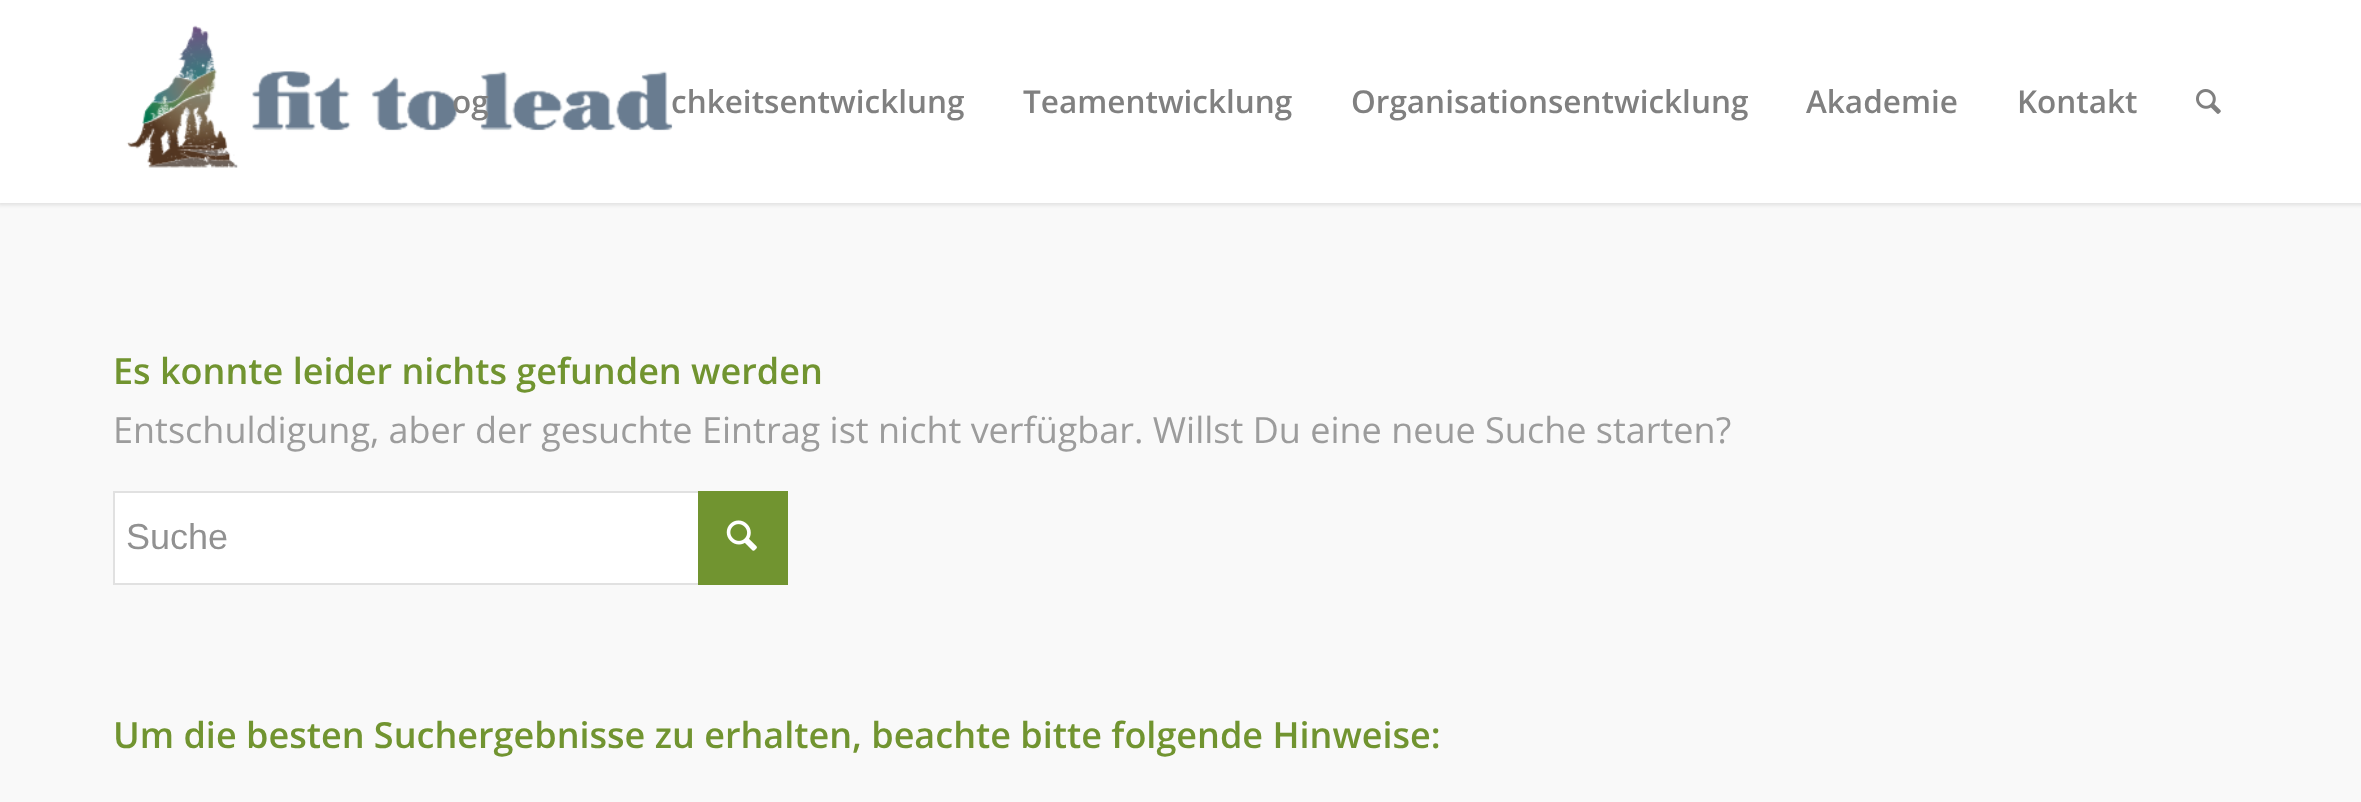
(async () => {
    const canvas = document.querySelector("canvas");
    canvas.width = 2361;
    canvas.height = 802;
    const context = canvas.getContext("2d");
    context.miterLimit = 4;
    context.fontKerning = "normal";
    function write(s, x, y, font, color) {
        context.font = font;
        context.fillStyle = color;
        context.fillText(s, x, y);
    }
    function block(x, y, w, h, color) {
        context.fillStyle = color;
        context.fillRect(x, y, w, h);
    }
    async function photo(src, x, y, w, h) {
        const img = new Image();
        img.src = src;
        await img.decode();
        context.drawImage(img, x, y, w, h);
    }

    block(0, 0, 2361, 802, "rgb(249, 249, 249)");
    context.fillStyle = "rgba(0, 0, 0, 0.1)";
    context.filter = "blur(2px)";
    context.beginPath();
    context.rect(-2, -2, 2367, 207);
    context.fill();
    context.filter = "none";
    block(0, 0, 2361, 203, "rgb(255, 255, 255)");
    await photo("media/1.png", 126, 25, 547, 143);
    write("og", 452, 113, "600 31.5px Open Sans", "rgb(128, 128, 128)");
    write("chkeitsentwicklung", 671, 113, "600 31.5px Open Sans", "rgb(128, 128, 128)");
    write("Teamentwicklung", 1023, 113, "600 31.5px Open Sans", "rgb(128, 128, 128)");
    write("Organisationsentwicklung", 1351, 113, "600 31.5px Open Sans", "rgb(128, 128, 128)");
    write("Akademie", 1806, 113, "600 31.5px Open Sans", "rgb(128, 128, 128)");
    write("Kontakt", 2017, 113, "600 31.5px Open Sans", "rgb(128, 128, 128)");
    await photo("media/2.png", 2196, 89, 25, 25);
    write("Es konnte leider nichts gefunden werden", 113, 384, "600 36px Open Sans", "rgb(113, 148, 48)");
    write("Entschuldigung, aber der gesuchte Eintrag ist nicht verfügbar. Willst Du eine neue Suche starten?", 113, 443, "36px Open Sans", "rgb(156, 156, 156)");
    block(115, 493, 583, 90, "rgb(255, 255, 255)");
    context.strokeStyle = "rgb(225, 225, 225)";
    context.lineWidth = 2;
    context.strokeRect(114, 492, 673, 92);
    write("Suche", 126, 549, "36px Liberation Sans", "rgb(145, 145, 145)");
    block(698, 491, 90, 94, "rgb(113, 148, 48)");
    await photo("media/3.png", 726, 520, 31, 31);
    write("Um die besten Suchergebnisse zu erhalten, beachte bitte folgende Hinweise:", 113, 748, "600 36px Open Sans", "rgb(113, 148, 48)");
})();
